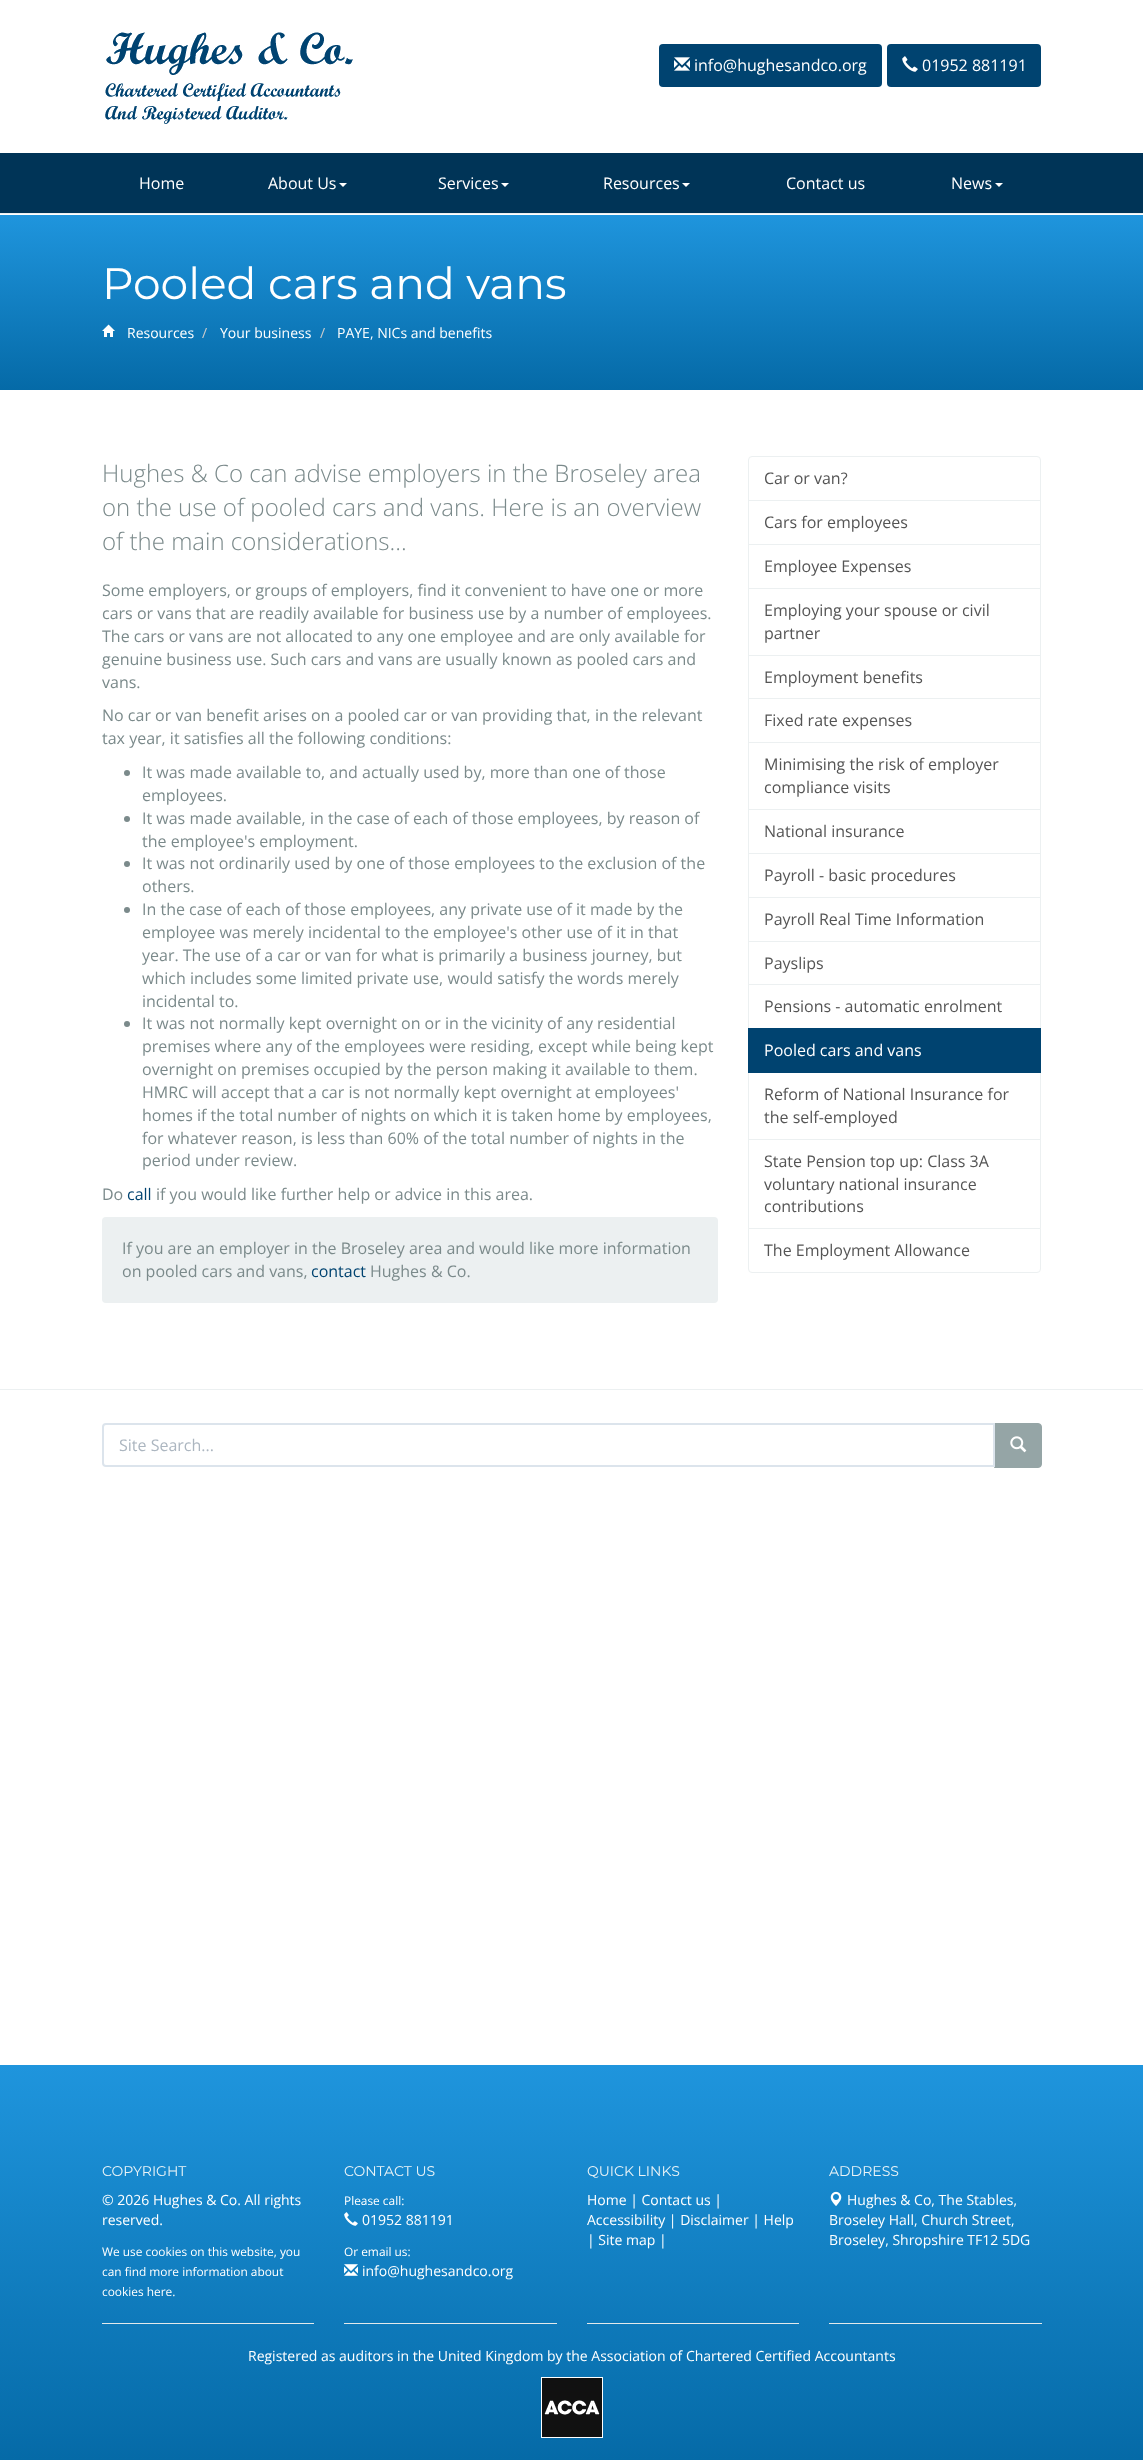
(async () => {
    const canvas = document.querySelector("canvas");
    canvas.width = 1143;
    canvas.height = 2460;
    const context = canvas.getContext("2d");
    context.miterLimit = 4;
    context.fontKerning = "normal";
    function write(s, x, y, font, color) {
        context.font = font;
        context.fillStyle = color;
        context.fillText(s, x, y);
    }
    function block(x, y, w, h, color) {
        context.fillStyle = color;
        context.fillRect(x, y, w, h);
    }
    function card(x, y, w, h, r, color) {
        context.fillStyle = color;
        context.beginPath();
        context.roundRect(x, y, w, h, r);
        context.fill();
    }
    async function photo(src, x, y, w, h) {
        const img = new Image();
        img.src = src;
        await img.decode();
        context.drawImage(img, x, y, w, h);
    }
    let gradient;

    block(0, 0, 1143, 2460, "rgb(255, 255, 255)");
    block(0, 213, 1143, 1, "rgb(236, 240, 241)");
    await photo("media/1.png", 105, 32, 248, 92);
    card(659, 44, 223, 43, 4, "rgb(0, 67, 112)");
    await photo("media/2.png", 674, 57, 16, 14);
    write("info@hughesandco.org", 694, 71, "16px Open Sans", "rgb(255, 255, 255)");
    card(887, 44, 154, 43, 4, "rgb(0, 67, 112)");
    await photo("media/3.png", 902, 56, 16, 16);
    write("01952 881191", 922, 71, "16px Open Sans", "rgb(255, 255, 255)");
    block(0, 153, 1143, 60, "rgb(0, 52, 87)");
    write("Home", 139, 189, "16px Open Sans", "rgb(255, 255, 255)");
    write("About Us", 268, 189, "16px Open Sans", "rgb(255, 255, 255)");
    context.beginPath();
    context.moveTo(339, 183);
    context.lineTo(347, 183);
    context.lineTo(343, 187);
    context.closePath();
    context.fill();
    write("Services", 438, 189, "16px Open Sans", "rgb(255, 255, 255)");
    context.beginPath();
    context.moveTo(501, 183);
    context.lineTo(509, 183);
    context.lineTo(505, 187);
    context.closePath();
    context.fill();
    write("Resources", 603, 189, "16px Open Sans", "rgb(255, 255, 255)");
    context.beginPath();
    context.moveTo(682, 183);
    context.lineTo(690, 183);
    context.lineTo(686, 187);
    context.closePath();
    context.fill();
    write("Contact us", 786, 189, "16px Open Sans", "rgb(255, 255, 255)");
    write("News", 951, 189, "16px Open Sans", "rgb(255, 255, 255)");
    context.beginPath();
    context.moveTo(995, 183);
    context.lineTo(1003, 183);
    context.lineTo(999, 187);
    context.closePath();
    context.fill();
    gradient = context.createLinearGradient(572, 215, 572, 390);
    gradient.addColorStop(0, "rgb(31, 149, 221)");
    gradient.addColorStop(1, "rgb(5, 106, 167)");
    context.fillStyle = gradient;
    context.fillRect(0, 215, 1143, 175);
    write("Pooled cars and vans", 102, 299, "100 44px Montserrat", "rgb(255, 255, 255)");
    await photo("media/4.png", 102, 324, 13, 13);
    write("Resources", 127, 338, "14px Open Sans", "rgb(255, 255, 255)");
    write("/", 202, 338, "14px Open Sans", "rgb(204, 204, 204)");
    write("Your business", 220, 338, "14px Open Sans", "rgb(255, 255, 255)");
    write("/", 320, 338, "14px Open Sans", "rgb(204, 204, 204)");
    write("PAYE, NICs and benefits", 337, 338, "14px Open Sans", "rgb(255, 255, 255)");
    write("Hughes & Co can advise employers in the Broseley area", 102, 482, "300 24px Open Sans", "rgb(123, 138, 139)");
    write("on the use of pooled cars and vans. Here is an overview", 102, 516, "300 24px Open Sans", "rgb(123, 138, 139)");
    write("of the main considerations...", 102, 550, "300 24px Open Sans", "rgb(123, 138, 139)");
    write("Some employers, or groups of employers, find it convenient to have one or more", 102, 596, "16px Open Sans", "rgb(123, 138, 139)");
    write("cars or vans that are readily available for business use by a number of employees.", 102, 619, "16px Open Sans", "rgb(123, 138, 139)");
    write("The cars or vans are not allocated to any one employee and are only available for", 102, 642, "16px Open Sans", "rgb(123, 138, 139)");
    write("genuine business use. Such cars and vans are usually known as pooled cars and", 102, 665, "16px Open Sans", "rgb(123, 138, 139)");
    write("vans.", 102, 688, "16px Open Sans", "rgb(123, 138, 139)");
    write("No car or van benefit arises on a pooled car or van providing that, in the relevant", 102, 721, "16px Open Sans", "rgb(123, 138, 139)");
    write("tax year, it satisfies all the following conditions:", 102, 744, "16px Open Sans", "rgb(123, 138, 139)");
    context.beginPath();
    context.arc(127, 773, 3, 0, Math.PI * 2);
    context.fill();
    write("It was made available to, and actually used by, more than one of those", 142, 778, "16px Open Sans", "rgb(123, 138, 139)");
    write("employees.", 142, 801, "16px Open Sans", "rgb(123, 138, 139)");
    context.beginPath();
    context.arc(127, 819, 3, 0, Math.PI * 2);
    context.fill();
    write("It was made available, in the case of each of those employees, by reason of", 142, 824, "16px Open Sans", "rgb(123, 138, 139)");
    write("the employee's employment.", 142, 847, "16px Open Sans", "rgb(123, 138, 139)");
    context.beginPath();
    context.arc(127, 864, 3, 0, Math.PI * 2);
    context.fill();
    write("It was not ordinarily used by one of those employees to the exclusion of the", 142, 869, "16px Open Sans", "rgb(123, 138, 139)");
    write("others.", 142, 892, "16px Open Sans", "rgb(123, 138, 139)");
    context.beginPath();
    context.arc(127, 910, 3, 0, Math.PI * 2);
    context.fill();
    write("In the case of each of those employees, any private use of it made by the", 142, 915, "16px Open Sans", "rgb(123, 138, 139)");
    write("employee was merely incidental to the employee's other use of it in that", 142, 938, "16px Open Sans", "rgb(123, 138, 139)");
    write("year. The use of a car or van for what is primarily a business journey, but", 142, 961, "16px Open Sans", "rgb(123, 138, 139)");
    write("which includes some limited private use, would satisfy the words merely", 142, 984, "16px Open Sans", "rgb(123, 138, 139)");
    write("incidental to.", 142, 1007, "16px Open Sans", "rgb(123, 138, 139)");
    context.beginPath();
    context.arc(127, 1024, 3, 0, Math.PI * 2);
    context.fill();
    write("It was not normally kept overnight on or in the vicinity of any residential", 142, 1029, "16px Open Sans", "rgb(123, 138, 139)");
    write("premises where any of the employees were residing, except while being kept", 142, 1052, "16px Open Sans", "rgb(123, 138, 139)");
    write("overnight on premises occupied by the person making it available to them.", 142, 1075, "16px Open Sans", "rgb(123, 138, 139)");
    write("HMRC will accept that a car is not normally kept overnight at employees'", 142, 1098, "16px Open Sans", "rgb(123, 138, 139)");
    write("homes if the total number of nights on which it is taken home by employees,", 142, 1121, "16px Open Sans", "rgb(123, 138, 139)");
    write("for whatever reason, is less than 60% of the total number of nights in the", 142, 1144, "16px Open Sans", "rgb(123, 138, 139)");
    write("period under review.", 142, 1166, "16px Open Sans", "rgb(123, 138, 139)");
    write("Do", 102, 1200, "16px Open Sans", "rgb(123, 138, 139)");
    write("call", 127, 1200, "16px Open Sans", "rgb(0, 67, 112)");
    write("if you would like further help or advice in this area.", 156, 1200, "16px Open Sans", "rgb(123, 138, 139)");
    card(102, 1217, 616, 86, 4, "rgb(236, 240, 241)");
    write("If you are an employer in the Broseley area and would like more information", 122, 1254, "16px Open Sans", "rgb(123, 138, 139)");
    write("on pooled cars and vans,", 122, 1277, "16px Open Sans", "rgb(123, 138, 139)");
    write("contact", 311, 1277, "16px Open Sans", "rgb(0, 67, 112)");
    write("Hughes & Co.", 370, 1277, "16px Open Sans", "rgb(123, 138, 139)");
    context.beginPath();
    context.roundRect(748.5, 456.5, 292, 44, [3.5, 3.5, 0, 0]);
    context.strokeStyle = "rgb(236, 240, 241)";
    context.stroke();
    write("Car or van?", 764, 484, "16px Open Sans", "rgb(85, 85, 85)");
    context.strokeRect(748.5, 500.5, 292, 44);
    write("Cars for employees", 764, 528, "16px Open Sans", "rgb(85, 85, 85)");
    context.strokeRect(748.5, 544.5, 292, 44);
    write("Employee Expenses", 764, 572, "16px Open Sans", "rgb(85, 85, 85)");
    context.strokeRect(748.5, 588.5, 292, 67);
    write("Employing your spouse or civil", 764, 616, "16px Open Sans", "rgb(85, 85, 85)");
    write("partner", 764, 639, "16px Open Sans", "rgb(85, 85, 85)");
    context.strokeRect(748.5, 655.5, 292, 43);
    write("Employment benefits", 764, 683, "16px Open Sans", "rgb(85, 85, 85)");
    context.strokeRect(748.5, 698.5, 292, 44);
    write("Fixed rate expenses", 764, 726, "16px Open Sans", "rgb(85, 85, 85)");
    context.strokeRect(748.5, 742.5, 292, 67);
    write("Minimising the risk of employer", 764, 770, "16px Open Sans", "rgb(85, 85, 85)");
    write("compliance visits", 764, 793, "16px Open Sans", "rgb(85, 85, 85)");
    context.strokeRect(748.5, 809.5, 292, 44);
    write("National insurance", 764, 837, "16px Open Sans", "rgb(85, 85, 85)");
    context.strokeRect(748.5, 853.5, 292, 44);
    write("Payroll - basic procedures", 764, 881, "16px Open Sans", "rgb(85, 85, 85)");
    context.strokeRect(748.5, 897.5, 292, 44);
    write("Payroll Real Time Information", 764, 925, "16px Open Sans", "rgb(85, 85, 85)");
    context.strokeRect(748.5, 941.5, 292, 43);
    write("Payslips", 764, 969, "16px Open Sans", "rgb(85, 85, 85)");
    context.strokeRect(748.5, 984.5, 292, 44);
    write("Pensions - automatic enrolment", 764, 1012, "16px Open Sans", "rgb(85, 85, 85)");
    context.strokeRect(748.5, 1072.5, 292, 67);
    block(748, 1028, 293, 45, "rgb(0, 67, 112)");
    write("Pooled cars and vans", 764, 1056, "16px Open Sans", "rgb(255, 255, 255)");
    write("Reform of National Insurance for", 764, 1100, "16px Open Sans", "rgb(85, 85, 85)");
    write("the self-employed", 764, 1123, "16px Open Sans", "rgb(85, 85, 85)");
    context.strokeRect(748.5, 1139.5, 292, 89);
    write("State Pension top up: Class 3A", 764, 1167, "16px Open Sans", "rgb(85, 85, 85)");
    write("voluntary national insurance", 764, 1190, "16px Open Sans", "rgb(85, 85, 85)");
    write("contributions", 764, 1212, "16px Open Sans", "rgb(85, 85, 85)");
    context.fillStyle = "rgb(255, 255, 255)";
    context.beginPath();
    context.roundRect(748.5, 1228.5, 292, 44, [0, 0, 3.5, 3.5]);
    context.fill();
    context.stroke();
    write("The Employment Allowance", 764, 1256, "16px Open Sans", "rgb(85, 85, 85)");
    block(0, 1389, 1143, 1, "rgb(236, 240, 241)");
    context.fillStyle = "rgb(149, 165, 166)";
    context.beginPath();
    context.roundRect(994.5, 1423.5, 47, 44, [0, 3.5, 3.5, 0]);
    context.fill();
    context.strokeStyle = "rgb(149, 165, 166)";
    context.stroke();
    context.fillStyle = "rgb(255, 255, 255)";
    context.beginPath();
    context.roundRect(103, 1424, 891, 42, [3, 0, 0, 3]);
    context.fill();
    context.strokeStyle = "rgb(220, 228, 236)";
    context.lineWidth = 2;
    context.stroke();
    write("Site Search...", 119, 1451, "16px Open Sans", "rgb(172, 182, 192)");
    await photo("media/5.png", 1010, 1436, 17, 17);
    gradient = context.createLinearGradient(572, 2065, 572, 2460);
    gradient.addColorStop(0, "rgb(31, 149, 221)");
    gradient.addColorStop(1, "rgb(5, 106, 167)");
    context.fillStyle = gradient;
    context.fillRect(0, 2065, 1143, 395);
    block(102, 2323, 212, 1, "rgb(227, 233, 235)");
    write("COPYRIGHT", 102, 2176, "100 14px Montserrat", "rgb(236, 244, 247)");
    write("© 2026 Hughes & Co. All rights", 102, 2205, "14px Open Sans", "rgb(255, 255, 255)");
    write("reserved.", 102, 2225, "14px Open Sans", "rgb(255, 255, 255)");
    write("We use cookies on this website, you", 102, 2256, "11.9px Open Sans", "rgb(255, 255, 255)");
    write("can find more information about", 102, 2276, "11.9px Open Sans", "rgb(255, 255, 255)");
    write("cookies here.", 102, 2296, "11.9px Open Sans", "rgb(255, 255, 255)");
    block(344, 2323, 213, 1, "rgb(227, 233, 235)");
    write("CONTACT US", 344, 2176, "100 14px Montserrat", "rgb(236, 244, 247)");
    write("Please call:", 344, 2205, "11.9px Open Sans", "rgb(255, 255, 255)");
    await photo("media/6.png", 344, 2212, 14, 14);
    write("01952 881191", 362, 2225, "14px Open Sans", "rgb(255, 255, 255)");
    write("Or email us:", 344, 2256, "11.9px Open Sans", "rgb(255, 255, 255)");
    await photo("media/7.png", 344, 2264, 14, 12);
    write("info@hughesandco.org", 362, 2276, "14px Open Sans", "rgb(255, 255, 255)");
    block(587, 2323, 212, 1, "rgb(227, 233, 235)");
    write("QUICK LINKS", 587, 2176, "100 14px Montserrat", "rgb(236, 244, 247)");
    write("Home | Contact us |", 587, 2205, "14px Open Sans", "rgb(255, 255, 255)");
    write("Accessibility | Disclaimer | Help", 587, 2225, "14px Open Sans", "rgb(255, 255, 255)");
    write("| Site map |", 587, 2245, "14px Open Sans", "rgb(255, 255, 255)");
    block(829, 2323, 213, 1, "rgb(227, 233, 235)");
    write("ADDRESS", 829, 2176, "100 14px Montserrat", "rgb(236, 244, 247)");
    await photo("media/8.png", 830, 2191, 12, 15);
    write("Hughes & Co, The Stables,", 847, 2205, "14px Open Sans", "rgb(255, 255, 255)");
    write("Broseley Hall, Church Street,", 829, 2225, "14px Open Sans", "rgb(255, 255, 255)");
    write("Broseley, Shropshire TF12 5DG", 829, 2245, "14px Open Sans", "rgb(255, 255, 255)");
    write("Registered as auditors in the United Kingdom by the Association of Chartered Certified Accountants", 248, 2361, "14px Open Sans", "rgb(255, 255, 255)");
    await photo("media/9.png", 541, 2377, 62, 61);
})();
